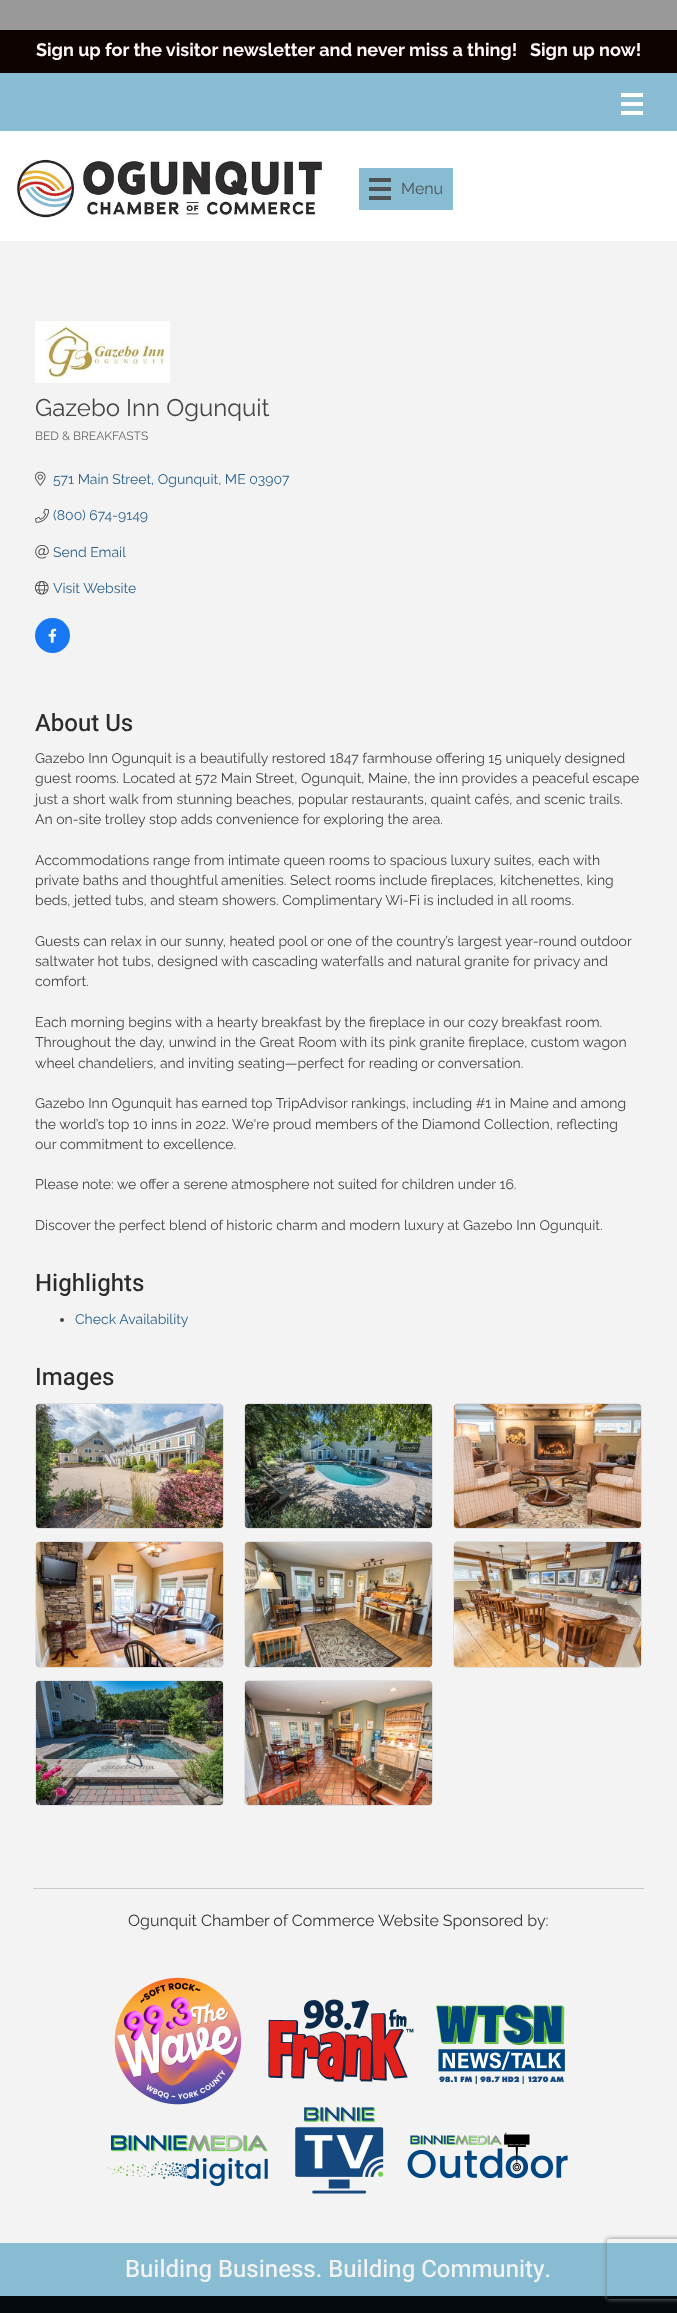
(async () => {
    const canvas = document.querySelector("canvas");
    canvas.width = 677;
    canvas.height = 2313;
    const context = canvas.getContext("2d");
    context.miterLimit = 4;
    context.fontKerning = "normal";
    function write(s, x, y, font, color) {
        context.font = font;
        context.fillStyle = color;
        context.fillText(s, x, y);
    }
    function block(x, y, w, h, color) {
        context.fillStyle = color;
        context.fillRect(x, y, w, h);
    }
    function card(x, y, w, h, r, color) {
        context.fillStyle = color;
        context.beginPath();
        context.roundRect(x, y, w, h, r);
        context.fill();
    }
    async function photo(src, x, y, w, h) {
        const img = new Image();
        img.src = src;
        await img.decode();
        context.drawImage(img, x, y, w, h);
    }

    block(0, 0, 677, 2313, "rgb(153, 153, 153)");
    block(0, 30, 677, 43, "rgb(15, 3, 2)");
    write("Sign up for the visitor newsletter and never miss a thing!", 36, 56, "bold 18px Raleway", "rgb(255, 249, 249)");
    write("Sign up now!", 530, 56, "bold 18px Raleway", "rgb(255, 249, 249)");
    block(0, 73, 677, 58, "rgb(136, 188, 210)");
    block(621, 93, 22, 4, "rgb(255, 255, 255)");
    block(621, 102, 22, 4, "rgb(255, 255, 255)");
    block(621, 111, 22, 4, "rgb(255, 255, 255)");
    block(0, 131, 677, 110, "rgb(255, 255, 255)");
    await photo("media/1.png", 17, 159, 308, 60);
    block(359, 168, 94, 42, "rgb(136, 188, 210)");
    block(369, 178, 22, 4, "rgb(76, 82, 86)");
    block(369, 187, 22, 4, "rgb(76, 82, 86)");
    block(369, 196, 22, 4, "rgb(76, 82, 86)");
    write("Menu", 401, 194, "16px Raleway", "rgb(76, 82, 86)");
    block(0, 241, 677, 2002, "rgb(243, 243, 243)");
    await photo("media/2.png", 35, 321, 135, 62);
    write("Gazebo Inn Ogunquit", 35, 416, "24px Raleway", "rgb(68, 68, 68)");
    write("BED & BREAKFASTS", 35, 440, "12px Raleway", "rgb(103, 103, 103)");
    await photo("media/3.png", 35, 471, 11, 15);
    write("571 Main Street, Ogunquit, ME 03907", 53, 484, "14px Raleway", "rgb(47, 98, 139)");
    await photo("media/4.png", 35, 508, 14, 15);
    write("(800) 674-9149", 53, 520, "14px Raleway", "rgb(47, 98, 139)");
    await photo("media/5.png", 35, 545, 14, 14);
    write("Send Email", 53, 557, "14px Raleway", "rgb(47, 98, 139)");
    await photo("media/6.png", 35, 581, 14, 14);
    write("Visit Website", 53, 593, "14px Raleway", "rgb(47, 98, 139)");
    context.fillStyle = "rgb(24, 119, 242)";
    context.beginPath();
    context.arc(52.5, 635.5, 17.5, 0, Math.PI * 2);
    context.fill();
    await photo("media/7.png", 48, 628, 9, 15);
    write("About Us", 35, 731, "500 24px Heebo", "rgb(43, 43, 43)");
    write("Gazebo Inn Ogunquit is a beautifully restored 1847 farmhouse offering 15 uniquely designed", 35, 763, "14px Raleway", "rgb(68, 68, 68)");
    write("guest rooms. Located at 572 Main Street, Ogunquit, Maine, the inn provides a peaceful escape", 35, 783, "14px Raleway", "rgb(68, 68, 68)");
    write("just a short walk from stunning beaches, popular restaurants, quaint cafés, and scenic trails.", 35, 804, "14px Raleway", "rgb(68, 68, 68)");
    write("An on-site trolley stop adds convenience for exploring the area.", 35, 824, "14px Raleway", "rgb(68, 68, 68)");
    write("Accommodations range from intimate queen rooms to spacious luxury suites, each with", 35, 865, "14px Raleway", "rgb(68, 68, 68)");
    write("private baths and thoughtful amenities. Select rooms include fireplaces, kitchenettes, king", 35, 885, "14px Raleway", "rgb(68, 68, 68)");
    write("beds, jetted tubs, and steam showers. Complimentary Wi-Fi is included in all rooms.", 35, 905, "14px Raleway", "rgb(68, 68, 68)");
    write("Guests can relax in our sunny, heated pool or one of the country’s largest year-round outdoor", 35, 946, "14px Raleway", "rgb(68, 68, 68)");
    write("saltwater hot tubs, designed with cascading waterfalls and natural granite for privacy and", 35, 966, "14px Raleway", "rgb(68, 68, 68)");
    write("comfort.", 35, 986, "14px Raleway", "rgb(68, 68, 68)");
    write("Each morning begins with a hearty breakfast by the fireplace in our cozy breakfast room.", 35, 1027, "14px Raleway", "rgb(68, 68, 68)");
    write("Throughout the day, unwind in the Great Room with its pink granite fireplace, custom wagon", 35, 1047, "14px Raleway", "rgb(68, 68, 68)");
    write("wheel chandeliers, and inviting seating—perfect for reading or conversation.", 35, 1068, "14px Raleway", "rgb(68, 68, 68)");
    write("Gazebo Inn Ogunquit has earned top TripAdvisor rankings, including #1 in Maine and among", 35, 1108, "14px Raleway", "rgb(68, 68, 68)");
    write("the world’s top 10 inns in 2022. We're proud members of the Diamond Collection, reflecting", 35, 1129, "14px Raleway", "rgb(68, 68, 68)");
    write("our commitment to excellence.", 35, 1149, "14px Raleway", "rgb(68, 68, 68)");
    write("Please note: we offer a serene atmosphere not suited for children under 16.", 35, 1189, "14px Raleway", "rgb(68, 68, 68)");
    write("Discover the perfect blend of historic charm and modern luxury at Gazebo Inn Ogunquit.", 35, 1230, "14px Raleway", "rgb(68, 68, 68)");
    write("Highlights", 35, 1291, "500 24px Heebo", "rgb(43, 43, 43)");
    context.fillStyle = "rgb(68, 68, 68)";
    context.beginPath();
    context.arc(62, 1320, 2, 0, Math.PI * 2);
    context.fill();
    write("Check Availability", 75, 1324, "14px Raleway", "rgb(47, 98, 139)");
    write("Images", 35, 1385, "500 24px Heebo", "rgb(43, 43, 43)");
    card(35, 1403, 189, 126, 5, "rgb(255, 255, 255)");
    context.beginPath();
    context.roundRect(35.5, 1403.5, 188, 125, 4.5);
    context.strokeStyle = "rgba(0, 0, 0, 0.12)";
    context.stroke();
    await photo("media/8.png", 36, 1404, 187, 124);
    card(244, 1403, 189, 126, 5, "rgb(255, 255, 255)");
    context.beginPath();
    context.roundRect(244.5, 1403.5, 188, 125, 4.5);
    context.stroke();
    await photo("media/9.png", 245, 1404, 187, 124);
    card(453, 1403, 189, 126, 5, "rgb(255, 255, 255)");
    context.beginPath();
    context.roundRect(453.5, 1403.5, 188, 125, 4.5);
    context.stroke();
    await photo("media/10.png", 454, 1404, 187, 124);
    card(35, 1541, 189, 127, 5, "rgb(255, 255, 255)");
    context.beginPath();
    context.roundRect(35.5, 1541.5, 188, 126, 4.5);
    context.stroke();
    await photo("media/11.png", 36, 1542, 187, 125);
    card(244, 1541, 189, 127, 5, "rgb(255, 255, 255)");
    context.beginPath();
    context.roundRect(244.5, 1541.5, 188, 126, 4.5);
    context.stroke();
    await photo("media/12.png", 245, 1542, 187, 125);
    card(453, 1541, 189, 127, 5, "rgb(255, 255, 255)");
    context.beginPath();
    context.roundRect(453.5, 1541.5, 188, 126, 4.5);
    context.stroke();
    await photo("media/13.png", 454, 1542, 187, 125);
    card(35, 1680, 189, 126, 5, "rgb(255, 255, 255)");
    context.beginPath();
    context.roundRect(35.5, 1680.5, 188, 125, 4.5);
    context.stroke();
    await photo("media/14.png", 36, 1681, 187, 124);
    card(244, 1680, 189, 126, 5, "rgb(255, 255, 255)");
    context.beginPath();
    context.roundRect(244.5, 1680.5, 188, 125, 4.5);
    context.stroke();
    await photo("media/15.png", 245, 1681, 187, 124);
    block(33, 1888, 611, 1, "rgb(204, 204, 204)");
    write("Ogunquit Chamber of Commerce Website Sponsored by:", 128, 1926, "16px Raleway", "rgb(51, 51, 51)");
    await photo("media/16.png", 107, 1977, 461, 217);
    block(0, 2243, 677, 53, "rgb(136, 188, 210)");
    write("Building Business. Building Community.", 125, 2277, "500 24px Heebo", "rgb(243, 243, 243)");
    block(0, 2296, 677, 17, "rgb(5, 10, 14)");
    await photo("media/17.png", 112, 2312, 399, 1);
    context.save();
    context.beginPath();
    context.moveTo(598, 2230);
    context.lineTo(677, 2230);
    context.lineTo(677, 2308);
    context.lineTo(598, 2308);
    context.closePath();
    context.moveTo(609, 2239);
    context.lineTo(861, 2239);
    context.bezierCurveTo(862, 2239, 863, 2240, 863, 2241);
    context.lineTo(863, 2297);
    context.bezierCurveTo(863, 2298, 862, 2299, 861, 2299);
    context.lineTo(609, 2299);
    context.bezierCurveTo(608, 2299, 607, 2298, 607, 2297);
    context.lineTo(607, 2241);
    context.bezierCurveTo(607, 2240, 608, 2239, 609, 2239);
    context.closePath();
    context.clip("evenodd");
    context.fillStyle = "rgb(128, 128, 128)";
    context.filter = "blur(2.5px)";
    context.beginPath();
    context.roundRect(607, 2239, 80, 60, 2);
    context.fill();
    context.filter = "none";
    context.restore();
})();
